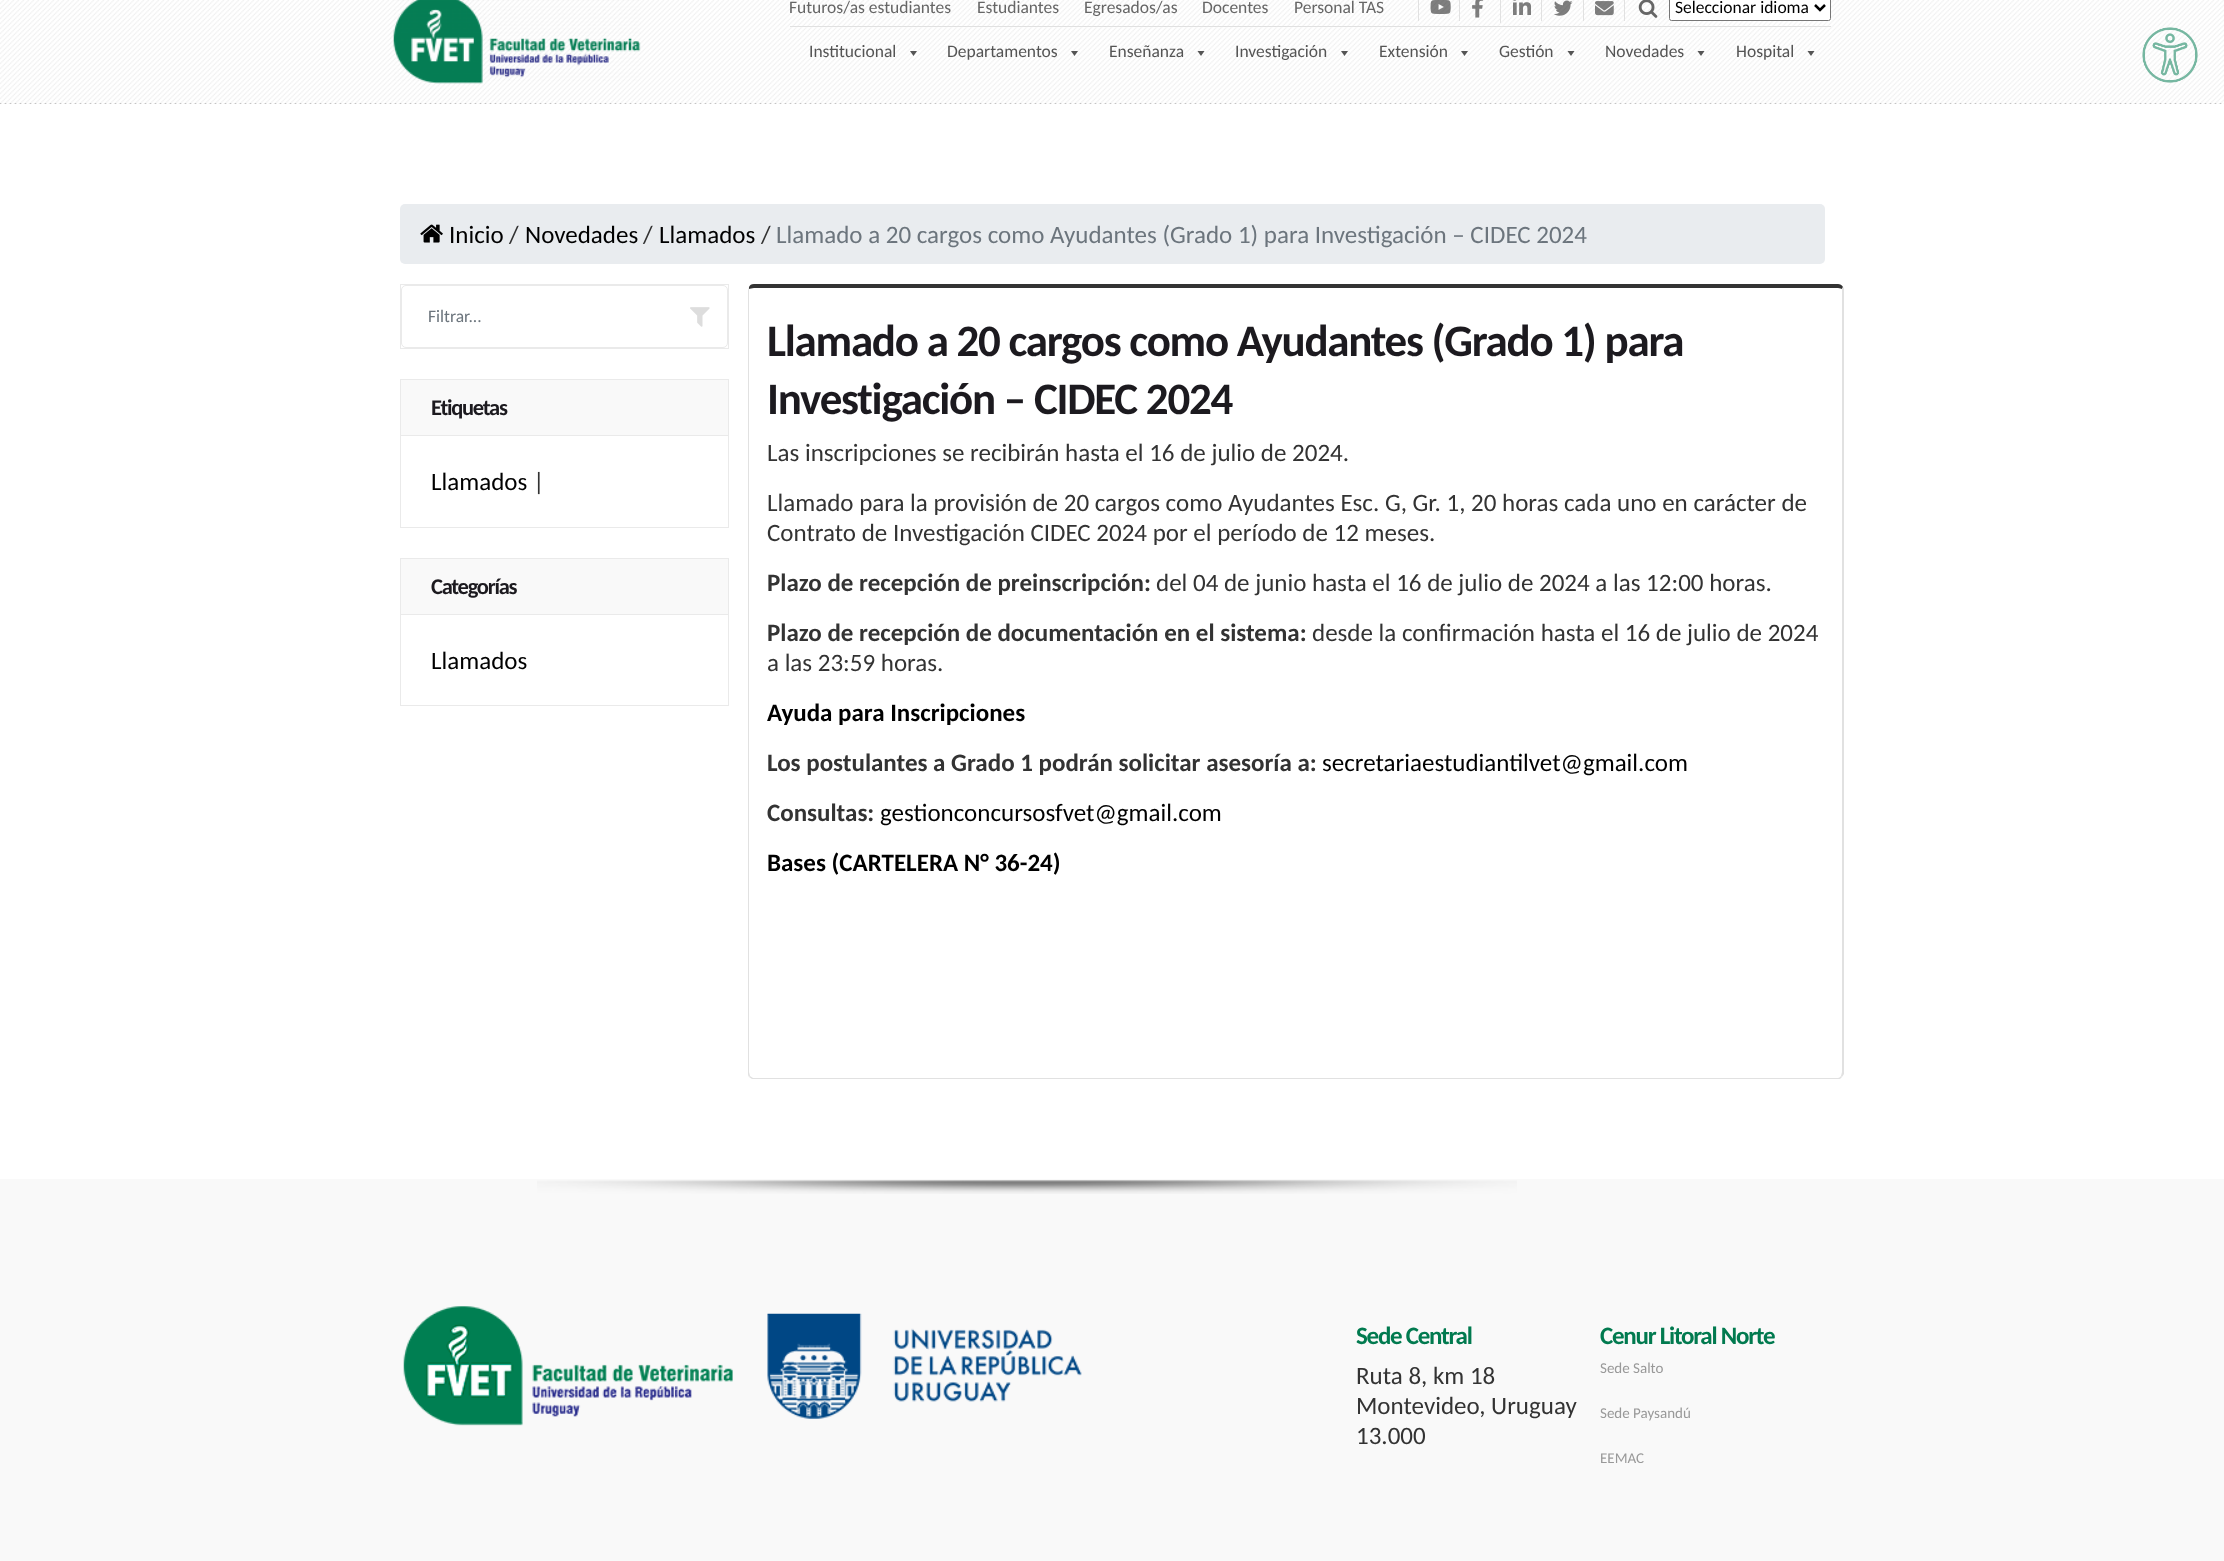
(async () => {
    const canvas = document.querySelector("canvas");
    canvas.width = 2224;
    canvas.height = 1561;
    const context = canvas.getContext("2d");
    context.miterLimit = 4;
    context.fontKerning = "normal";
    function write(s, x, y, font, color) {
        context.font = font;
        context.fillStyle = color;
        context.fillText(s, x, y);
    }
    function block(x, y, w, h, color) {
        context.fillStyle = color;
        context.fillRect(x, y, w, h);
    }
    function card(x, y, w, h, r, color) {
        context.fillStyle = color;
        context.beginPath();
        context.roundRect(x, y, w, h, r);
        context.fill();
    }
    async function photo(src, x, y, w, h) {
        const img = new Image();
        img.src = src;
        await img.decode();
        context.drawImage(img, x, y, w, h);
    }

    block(0, 0, 2224, 1561, "rgb(255, 255, 255)");
    await photo("media/1.png", 0, 0, 2224, 104);
    block(0, 0, 2224, 103, "rgba(255, 255, 255, 0.8)");
    await photo("media/2.png", 393, 0, 248, 84);
    block(790, 26, 1041, 1, "rgb(225, 225, 225)");
    write("Futuros/as estudiantes", 789, 13, "17.5px Carlito", "rgb(102, 102, 102)");
    write("Estudiantes", 977, 13, "17.5px Carlito", "rgb(102, 102, 102)");
    write("Egresados/as", 1084, 13, "17.5px Carlito", "rgb(102, 102, 102)");
    write("Docentes", 1202, 13, "17.5px Carlito", "rgb(102, 102, 102)");
    write("Personal TAS", 1294, 13, "17.5px Carlito", "rgb(102, 102, 102)");
    block(1418, 0, 1, 21, "rgb(225, 225, 225)");
    await photo("media/3.png", 1430, 0, 21, 14);
    block(1459, 0, 1, 21, "rgb(225, 225, 225)");
    await photo("media/4.png", 1472, 0, 11, 18);
    block(1500, 0, 1, 23, "rgb(225, 225, 225)");
    await photo("media/5.png", 1513, 0, 18, 15);
    block(1541, 0, 1, 21, "rgb(225, 225, 225)");
    await photo("media/6.png", 1554, 0, 19, 16);
    block(1583, 0, 1, 21, "rgb(225, 225, 225)");
    await photo("media/7.png", 1595, 1, 19, 15);
    block(1624, 0, 1, 21, "rgb(225, 225, 225)");
    await photo("media/8.png", 1638, 0, 20, 18);
    context.fillStyle = "rgb(255, 255, 255)";
    context.beginPath();
    context.roundRect(1669.5, -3.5, 161, 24, 2);
    context.fill();
    context.strokeStyle = "rgb(118, 118, 118)";
    context.stroke();
    context.beginPath();
    context.moveTo(1815, 5);
    context.lineTo(1820, 10);
    context.lineTo(1825, 5);
    context.strokeStyle = "rgb(0, 0, 0)";
    context.lineWidth = 2.5;
    context.stroke();
    write("Seleccionar idioma", 1675, 13, "17.5px Carlito", "rgb(0, 0, 0)");
    write("Institucional", 809, 57, "17.5px Carlito", "rgb(85, 85, 85)");
    context.beginPath();
    context.moveTo(917, 51);
    context.lineTo(913.5, 56);
    context.lineTo(910, 51);
    context.closePath();
    context.fill();
    write("Departamentos", 947, 57, "17.5px Carlito", "rgb(85, 85, 85)");
    context.beginPath();
    context.moveTo(1078, 51);
    context.lineTo(1074.5, 56);
    context.lineTo(1071, 51);
    context.closePath();
    context.fill();
    write("Enseñanza", 1109, 57, "17.5px Carlito", "rgb(85, 85, 85)");
    context.beginPath();
    context.moveTo(1204.5, 51);
    context.lineTo(1201, 56);
    context.lineTo(1197.5, 51);
    context.closePath();
    context.fill();
    write("Investigación", 1235, 57, "17.5px Carlito", "rgb(85, 85, 85)");
    context.beginPath();
    context.moveTo(1348, 51);
    context.lineTo(1344.5, 56);
    context.lineTo(1341, 51);
    context.closePath();
    context.fill();
    write("Extensión", 1379, 57, "17.5px Carlito", "rgb(85, 85, 85)");
    context.beginPath();
    context.moveTo(1468, 51);
    context.lineTo(1464.5, 56);
    context.lineTo(1461, 51);
    context.closePath();
    context.fill();
    write("Gestión", 1499, 57, "17.5px Carlito", "rgb(85, 85, 85)");
    context.beginPath();
    context.moveTo(1574.5, 51);
    context.lineTo(1571, 56);
    context.lineTo(1567.5, 51);
    context.closePath();
    context.fill();
    write("Novedades", 1605, 57, "17.5px Carlito", "rgb(85, 85, 85)");
    context.beginPath();
    context.moveTo(1704.5, 51);
    context.lineTo(1701, 56);
    context.lineTo(1697.5, 51);
    context.closePath();
    context.fill();
    write("Hospital", 1736, 57, "17.5px Carlito", "rgb(85, 85, 85)");
    context.beginPath();
    context.moveTo(1814.5, 51);
    context.lineTo(1811, 56);
    context.lineTo(1807.5, 51);
    context.closePath();
    context.fill();
    await photo("media/9.png", 2142, 27, 56, 56);
    card(400, 204, 1425, 60, 5, "rgb(233, 236, 239)");
    await photo("media/10.png", 420, 224, 23, 19);
    write("Inicio", 449, 243, "25px Carlito", "rgb(0, 0, 0)");
    write("/", 509, 243, "25px Carlito", "rgb(51, 51, 51)");
    write("Novedades", 525, 243, "25px Carlito", "rgb(0, 0, 0)");
    write("/", 643, 243, "25px Carlito", "rgb(51, 51, 51)");
    write("Llamados", 659, 243, "25px Carlito", "rgb(0, 0, 0)");
    write("/", 761, 243, "25px Carlito", "rgb(51, 51, 51)");
    write("Llamado a 20 cargos como Ayudantes (Grado 1) para Investigación – CIDEC 2024", 776, 243, "25px Carlito", "rgb(108, 117, 125)");
    context.strokeStyle = "rgb(234, 234, 234)";
    context.lineWidth = 1;
    context.strokeRect(400.5, 284.5, 328, 64);
    context.beginPath();
    context.roundRect(401.5, 285.5, 326, 62, 4.5);
    context.stroke();
    write("Filtrar...", 428, 322, "17.5px Carlito", "rgb(108, 117, 125)");
    await photo("media/11.png", 690, 307, 20, 20);
    context.strokeRect(400.5, 379.5, 328, 148);
    block(401, 380, 327, 55, "rgb(249, 249, 249)");
    context.letterSpacing = "-1.25px";
    write("Etiquetas", 431, 415, "bold 22.5px Carlito", "rgb(28, 26, 31)");
    block(401, 435, 327, 1, "rgb(234, 234, 234)");
    context.letterSpacing = "0px";
    write("Llamados", 431, 490, "25px Carlito", "rgb(0, 0, 0)");
    write("|", 533, 490, "25px Carlito", "rgb(51, 51, 51)");
    context.strokeRect(400.5, 558.5, 328, 147);
    block(401, 559, 327, 55, "rgb(249, 249, 249)");
    context.letterSpacing = "-1.25px";
    write("Categorías", 431, 594, "bold 22.5px Carlito", "rgb(28, 26, 31)");
    block(401, 614, 327, 1, "rgb(234, 234, 234)");
    context.letterSpacing = "0px";
    write("Llamados", 431, 669, "25px Carlito", "rgb(0, 0, 0)");
    context.fillStyle = "rgb(51, 51, 51)";
    context.beginPath();
    context.moveTo(754, 284);
    context.bezierCurveTo(751, 284, 750, 285, 749, 287);
    context.lineTo(749, 289);
    context.bezierCurveTo(750, 289, 752, 288, 754, 288);
    context.lineTo(1838, 288);
    context.bezierCurveTo(1840, 288, 1841, 289, 1842, 289);
    context.lineTo(1843, 287);
    context.bezierCurveTo(1842, 285, 1840, 284, 1838, 284);
    context.closePath();
    context.fill();
    context.fillStyle = "rgb(225, 225, 225)";
    context.beginPath();
    context.moveTo(1844, 1074);
    context.lineTo(1842, 1077);
    context.lineTo(1841, 1076);
    context.lineTo(1842, 1072);
    context.lineTo(1842, 289);
    context.lineTo(1843, 287);
    context.lineTo(1844, 288);
    context.closePath();
    context.fill();
    context.beginPath();
    context.moveTo(752, 1079);
    context.lineTo(749, 1077);
    context.lineTo(750, 1076);
    context.lineTo(753, 1078);
    context.lineTo(1838, 1078);
    context.bezierCurveTo(1839, 1078, 1840, 1077, 1841, 1076);
    context.lineTo(1842, 1077);
    context.lineTo(1840, 1079);
    context.closePath();
    context.fill();
    context.beginPath();
    context.moveTo(749, 287);
    context.lineTo(748, 290);
    context.lineTo(748, 1072);
    context.bezierCurveTo(748, 1074, 748, 1076, 749, 1077);
    context.lineTo(750, 1076);
    context.lineTo(749, 1072);
    context.lineTo(749, 289);
    context.closePath();
    context.fill();
    context.letterSpacing = "-1.25px";
    write("Llamado a 20 cargos como Ayudantes (Grado 1) para", 767, 356, "bold 45px Carlito", "rgb(28, 26, 31)");
    write("Investigación – CIDEC 2024", 767, 414, "bold 45px Carlito", "rgb(28, 26, 31)");
    context.letterSpacing = "0px";
    write("Las inscripciones se recibirán hasta el 16 de julio de 2024.", 767, 461, "25px Carlito", "rgb(51, 51, 51)");
    write("Llamado para la provisión de 20 cargos como Ayudantes Esc. G, Gr. 1, 20 horas cada uno en carácter de", 767, 511, "25px Carlito", "rgb(51, 51, 51)");
    write("Contrato de Investigación CIDEC 2024 por el período de 12 meses.", 767, 541, "25px Carlito", "rgb(51, 51, 51)");
    write("Plazo de recepción de preinscripción:", 767, 591, "bold 25px Carlito", "rgb(51, 51, 51)");
    write("del 04 de junio hasta el 16 de julio de 2024 a las 12:00 horas.", 1156, 591, "25px Carlito", "rgb(51, 51, 51)");
    write("Plazo de recepción de documentación en el sistema:", 767, 641, "bold 25px Carlito", "rgb(51, 51, 51)");
    write("desde la confirmación hasta el 16 de julio de 2024", 1312, 641, "25px Carlito", "rgb(51, 51, 51)");
    write("a las 23:59 horas.", 767, 671, "25px Carlito", "rgb(51, 51, 51)");
    write("Ayuda para Inscripciones", 767, 721, "bold 25px Carlito", "rgb(0, 0, 0)");
    write("Los postulantes a Grado 1 podrán solicitar asesoría a:", 767, 771, "bold 25px Carlito", "rgb(51, 51, 51)");
    write("secretariaestudiantilvet@gmail.com", 1322, 771, "25px Carlito", "rgb(0, 0, 0)");
    write("Consultas:", 767, 821, "bold 25px Carlito", "rgb(51, 51, 51)");
    write("gestionconcursosfvet@gmail.com", 880, 821, "25px Carlito", "rgb(0, 0, 0)");
    write("Bases (CARTELERA N° 36-24)", 767, 871, "bold 25px Carlito", "rgb(0, 0, 0)");
    block(0, 1179, 2224, 382, "rgb(249, 249, 249)");
    await photo("media/12.png", 537, 1180, 980, 14);
    await photo("media/13.png", 403, 1306, 679, 120);
    context.letterSpacing = "-1.25px";
    write("Sede Central", 1356, 1344, "bold 25px Carlito", "rgb(1, 122, 79)");
    context.letterSpacing = "0px";
    write("Ruta 8, km 18", 1356, 1384, "25px Carlito", "rgb(51, 51, 51)");
    write("Montevideo, Uruguay", 1356, 1414, "25px Carlito", "rgb(51, 51, 51)");
    write("13.000", 1356, 1444, "25px Carlito", "rgb(51, 51, 51)");
    context.letterSpacing = "-1.25px";
    write("Cenur Litoral Norte", 1600, 1344, "bold 25px Carlito", "rgb(1, 122, 79)");
    context.letterSpacing = "0px";
    write("Sede Salto", 1600, 1373, "15px Carlito", "rgb(153, 153, 153)");
    write("Sede Paysandú", 1600, 1418, "15px Carlito", "rgb(153, 153, 153)");
    write("EEMAC", 1600, 1463, "15px Carlito", "rgb(153, 153, 153)");
})();
